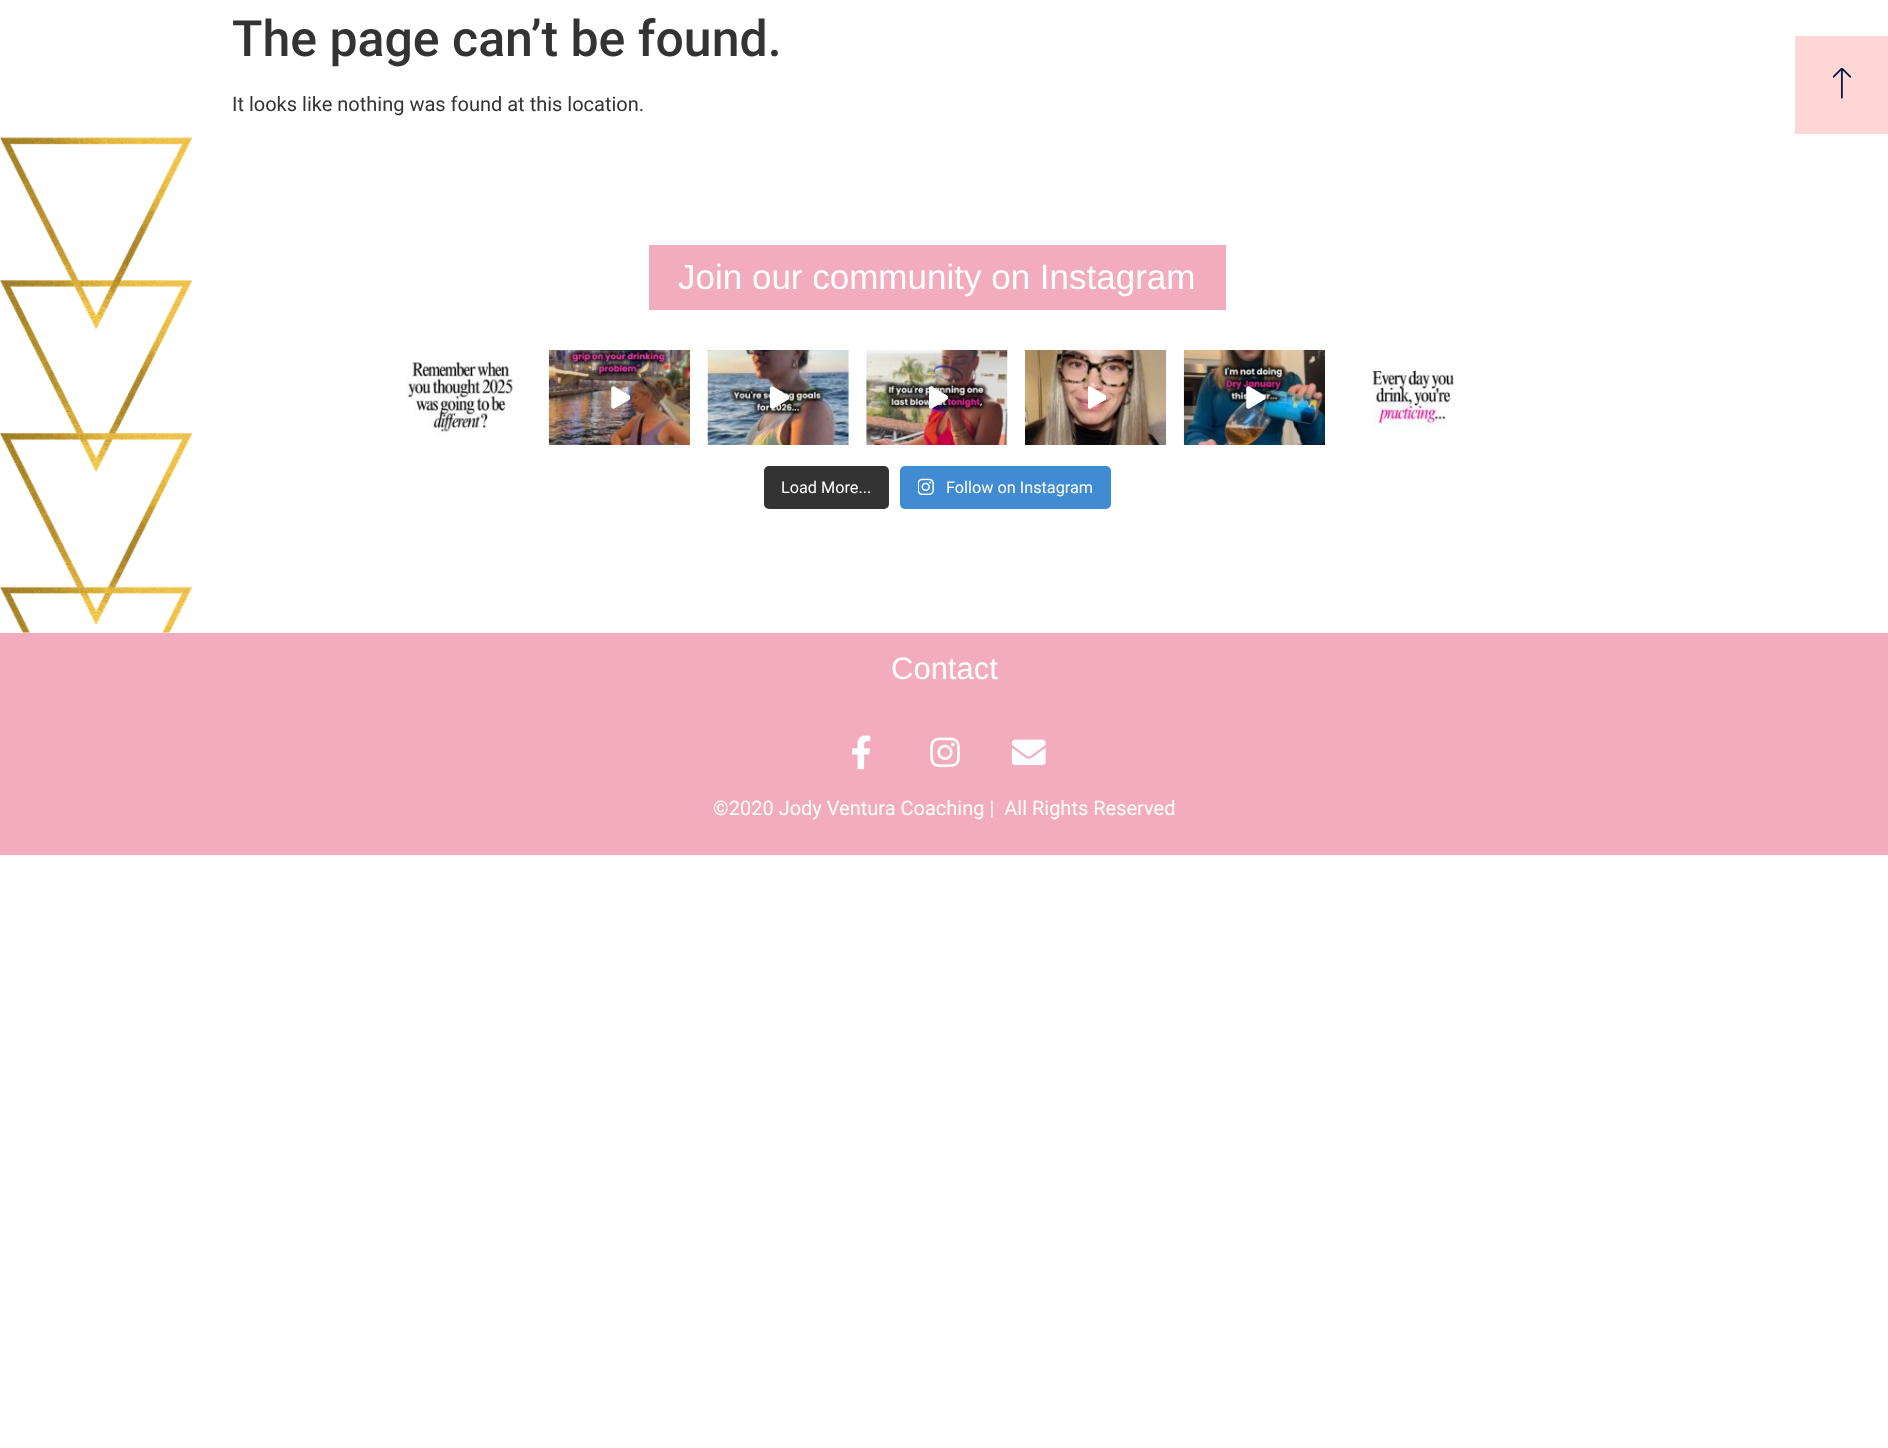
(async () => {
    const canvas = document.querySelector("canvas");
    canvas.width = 1888;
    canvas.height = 1448;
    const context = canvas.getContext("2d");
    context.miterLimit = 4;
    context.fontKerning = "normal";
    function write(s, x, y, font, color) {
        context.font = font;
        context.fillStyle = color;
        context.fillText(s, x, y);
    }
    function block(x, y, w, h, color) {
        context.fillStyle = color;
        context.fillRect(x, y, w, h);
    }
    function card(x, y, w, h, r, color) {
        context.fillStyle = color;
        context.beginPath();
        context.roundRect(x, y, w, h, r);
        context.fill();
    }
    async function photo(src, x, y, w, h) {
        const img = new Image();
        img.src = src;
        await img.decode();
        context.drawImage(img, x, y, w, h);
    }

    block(0, 0, 1888, 1448, "rgb(255, 255, 255)");
    write("The page can’t be found.", 232, 56, "500 50px Roboto", "rgb(51, 51, 51)");
    write("It looks like nothing was found at this location.", 232, 111, "20px Roboto", "rgb(51, 51, 51)");
    block(1795, 36, 93, 98, "rgb(255, 214, 214)");
    await photo("media/1.png", 1833, 68, 18, 31);
    await photo("media/2.png", 0, 137, 193, 496);
    block(649, 245, 577, 65, "rgb(243, 172, 189)");
    write("Join our community on Instagram", 678, 289, "35px Liberation Sans", "rgb(255, 255, 255)");
    await photo("media/3.png", 405, 361, 113, 75);
    block(510, 365, 1, 1, "rgb(255, 255, 255)");
    await photo("media/4.png", 548, 350, 142, 95);
    await photo("media/5.png", 611, 386, 19, 23);
    await photo("media/6.png", 707, 350, 142, 95);
    await photo("media/7.png", 770, 386, 19, 23);
    await photo("media/8.png", 866, 350, 142, 95);
    await photo("media/9.png", 929, 386, 19, 23);
    await photo("media/10.png", 1025, 350, 142, 95);
    await photo("media/11.png", 1088, 386, 18, 23);
    await photo("media/12.png", 1183, 350, 142, 95);
    await photo("media/13.png", 1246, 386, 19, 23);
    await photo("media/14.png", 1371, 369, 84, 61);
    card(764, 466, 125, 43, 5, "rgb(51, 51, 51)");
    write("Load More...", 781, 493, "16.25px Roboto", "rgb(255, 255, 255)");
    card(900, 466, 211, 43, 5, "rgb(64, 139, 209)");
    await photo("media/15.png", 918, 478, 16, 17);
    write("Follow on Instagram", 946, 493, "16.25px Roboto", "rgb(255, 255, 255)");
    block(0, 633, 1888, 222, "rgb(243, 172, 189)");
    write("Contact", 891, 679, "31px Liberation Sans", "rgb(255, 255, 255)");
    await photo("media/16.png", 852, 735, 19, 35);
    await photo("media/17.png", 930, 737, 30, 31);
    await photo("media/18.png", 1011, 739, 35, 26);
    write("©2020 Jody Ventura Coaching |  All Rights Reserved", 713, 815, "20px Roboto", "rgb(255, 255, 255)");
})();
